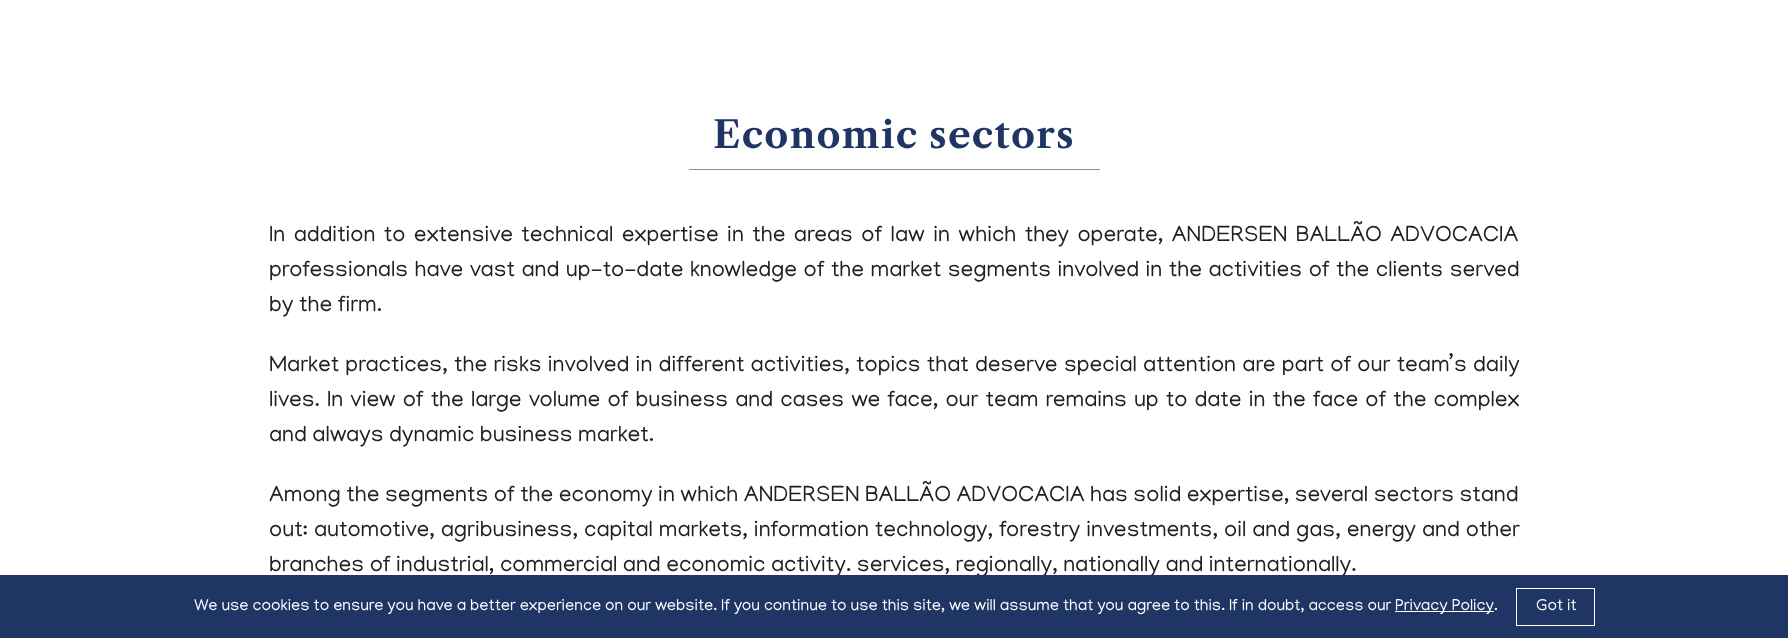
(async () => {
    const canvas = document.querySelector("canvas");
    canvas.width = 1788;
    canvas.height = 638;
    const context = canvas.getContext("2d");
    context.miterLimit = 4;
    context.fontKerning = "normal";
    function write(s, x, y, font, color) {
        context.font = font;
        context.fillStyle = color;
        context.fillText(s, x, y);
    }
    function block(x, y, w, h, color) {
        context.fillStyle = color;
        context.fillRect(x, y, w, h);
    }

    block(0, 0, 1788, 638, "rgb(255, 255, 255)");
    block(689, 169, 411, 1, "rgb(150, 145, 123)");
    context.letterSpacing = "1.25px";
    write("Economic sectors", 713, 148, "bold 37.5px Libre Caslon Text", "rgb(31, 54, 100)");
    context.letterSpacing = "0px";
    context.wordSpacing = "2.9px";
    write("In addition to extensive technical expertise in the areas of law in which they operate, ANDERSEN BALLÃO ADVOCACIA", 269, 241, "22.5px Manjari", "rgb(32, 32, 32)");
    context.wordSpacing = "1px";
    write("professionals have vast and up-to-date knowledge of the market segments involved in the activities of the clients served", 269, 276, "22.5px Manjari", "rgb(32, 32, 32)");
    context.wordSpacing = "0px";
    write("by the firm.", 269, 311, "22.5px Manjari", "rgb(32, 32, 32)");
    context.wordSpacing = "0.75px";
    write("Market practices, the risks involved in different activities, topics that deserve special attention are part of our team’s daily", 269, 371, "22.5px Manjari", "rgb(32, 32, 32)");
    context.wordSpacing = "1.6px";
    write("lives. In view of the large volume of business and cases we face, our team remains up to date in the face of the complex", 269, 406, "22.5px Manjari", "rgb(32, 32, 32)");
    context.wordSpacing = "0px";
    write("and always dynamic business market.", 269, 441, "22.5px Manjari", "rgb(32, 32, 32)");
    write("Among the segments of the economy in which ANDERSEN BALLÃO ADVOCACIA has solid expertise, several sectors stand", 269, 501, "22.5px Manjari", "rgb(32, 32, 32)");
    context.wordSpacing = "0.5px";
    write("out: automotive, agribusiness, capital markets, information technology, forestry investments, oil and gas, energy and other", 269, 536, "22.5px Manjari", "rgb(32, 32, 32)");
    context.wordSpacing = "0px";
    write("branches of industrial, commercial and economic activity. services, regionally, nationally and internationally.", 269, 571, "22.5px Manjari", "rgb(32, 32, 32)");
    block(0, 575, 1788, 63, "rgb(31, 54, 100)");
    write("We use cookies to ensure you have a better experience on our website. If you continue to use this site, we will assume that you agree to this. If in doubt, access our", 194, 610, "16.25px Manjari", "rgb(255, 255, 255)");
    block(1395, 611, 99, 1, "rgb(255, 255, 255)");
    write("Privacy Policy.", 1395, 610, "16.25px Manjari", "rgb(255, 255, 255)");
    context.strokeStyle = "rgb(255, 255, 255)";
    context.strokeRect(1516.5, 588.5, 78, 37);
    write("Got it", 1536, 610, "16.25px Manjari", "rgb(255, 255, 255)");
})();
